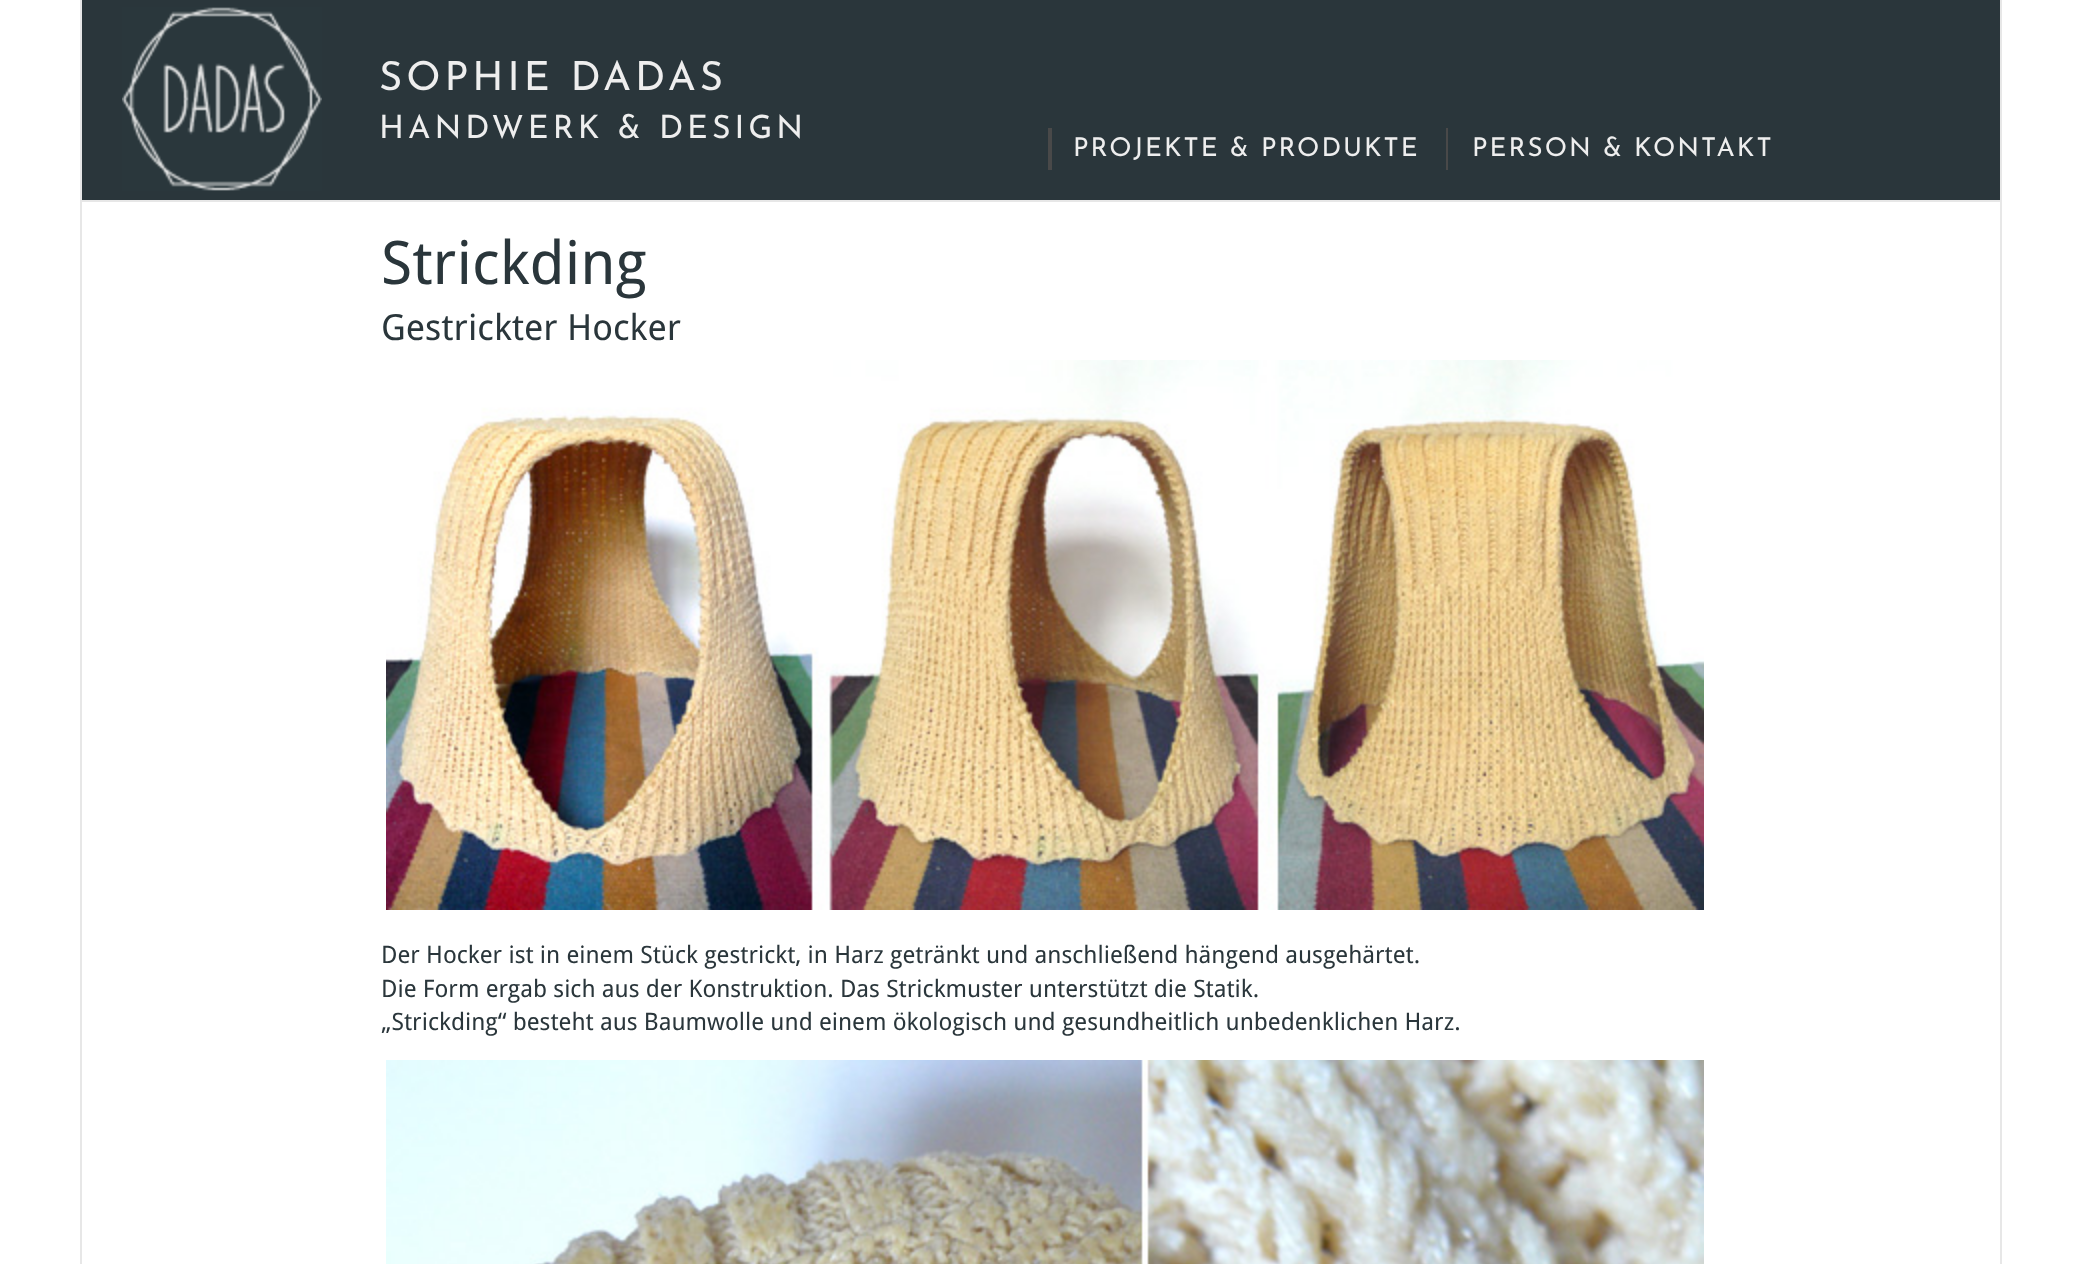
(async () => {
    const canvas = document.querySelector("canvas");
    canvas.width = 2080;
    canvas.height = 1264;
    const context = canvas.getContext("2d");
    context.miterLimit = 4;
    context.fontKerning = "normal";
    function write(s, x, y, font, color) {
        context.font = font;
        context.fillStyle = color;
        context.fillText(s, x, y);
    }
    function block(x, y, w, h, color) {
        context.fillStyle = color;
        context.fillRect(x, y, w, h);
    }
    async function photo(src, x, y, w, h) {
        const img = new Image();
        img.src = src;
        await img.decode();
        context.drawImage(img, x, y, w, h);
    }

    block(0, 0, 2080, 1264, "rgb(255, 255, 255)");
    block(2000, 0, 2, 1264, "rgb(231, 231, 231)");
    block(80, 0, 2, 1264, "rgb(231, 231, 231)");
    block(82, 200, 1918, 2, "rgb(231, 231, 231)");
    block(82, 0, 1918, 200, "rgb(42, 54, 59)");
    await photo("media/1.png", 122, 7, 200, 184);
    context.letterSpacing = "4px";
    write("SOPHIE DADAS", 379, 90, "40px Josefin Sans", "rgb(238, 238, 238)");
    write("HANDWERK & DESIGN", 379, 138, "32px Josefin Sans", "rgb(238, 238, 238)");
    block(1048, 128, 4, 42, "rgb(73, 73, 73)");
    context.letterSpacing = "2px";
    write("PROJEKTE & PRODUKTE", 1073, 156, "26px Josefin Sans", "rgb(238, 238, 238)");
    block(1446, 128, 2, 42, "rgb(73, 73, 73)");
    write("PERSON & KONTAKT", 1472, 156, "26px Josefin Sans", "rgb(238, 238, 238)");
    context.letterSpacing = "0px";
    write("Strickding", 381, 284, "60px Droid Sans", "rgb(42, 54, 59)");
    write("Gestrickter Hocker", 381, 340, "36px Droid Sans", "rgb(42, 54, 59)");
    await photo("media/2.png", 386, 360, 1318, 550);
    write("Der Hocker ist in einem Stück gestrickt, in Harz getränkt und anschließend hängend ausgehärtet.", 381, 963, "24px Droid Sans", "rgb(42, 54, 59)");
    write("Die Form ergab sich aus der Konstruktion. Das Strickmuster unterstützt die Statik.", 381, 997, "24px Droid Sans", "rgb(42, 54, 59)");
    write("„Strickding“ besteht aus Baumwolle und einem ökologisch und gesundheitlich unbedenklichen Harz.", 381, 1030, "24px Droid Sans", "rgb(42, 54, 59)");
    await photo("media/3.png", 386, 1060, 1318, 204);
})();
